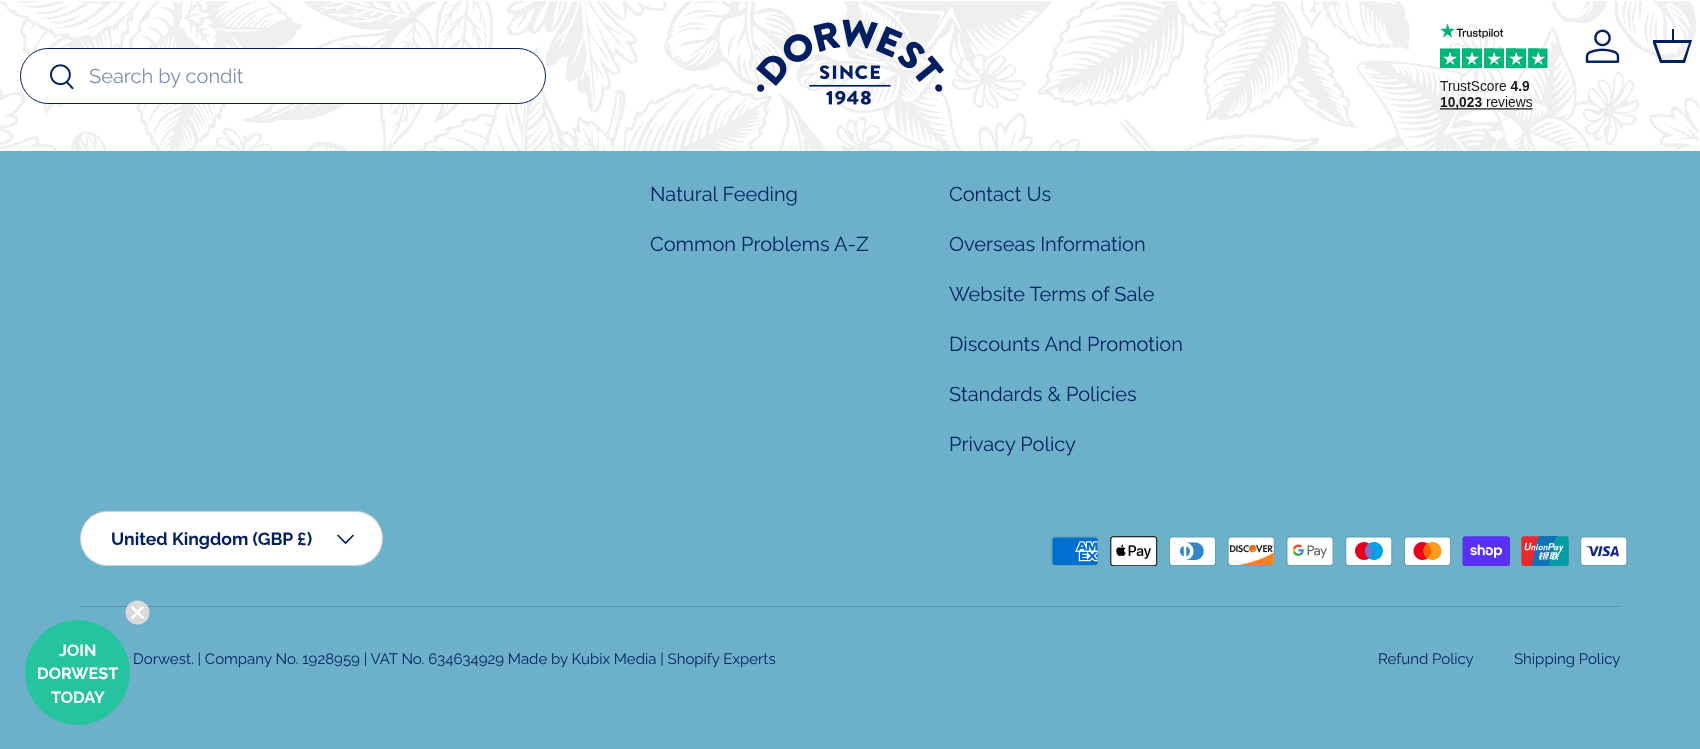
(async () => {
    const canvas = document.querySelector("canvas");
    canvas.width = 1700;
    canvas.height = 749;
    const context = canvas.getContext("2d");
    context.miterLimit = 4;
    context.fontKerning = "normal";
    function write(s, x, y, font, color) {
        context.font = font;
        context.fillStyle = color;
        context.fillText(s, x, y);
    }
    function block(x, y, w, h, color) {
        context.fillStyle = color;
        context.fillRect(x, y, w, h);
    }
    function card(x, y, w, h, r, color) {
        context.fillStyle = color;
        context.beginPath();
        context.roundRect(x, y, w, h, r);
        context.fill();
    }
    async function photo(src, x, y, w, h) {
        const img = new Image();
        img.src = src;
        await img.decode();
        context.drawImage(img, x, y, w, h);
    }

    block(0, 0, 1700, 749, "rgb(109, 176, 201)");
    block(0, 0, 1700, 151, "rgb(255, 255, 255)");
    await photo("media/1.png", 0, 1, 1700, 150);
    context.beginPath();
    context.roundRect(20.5, 48.5, 525, 55, 27.5);
    context.fill();
    context.strokeStyle = "rgb(0, 30, 96)";
    context.stroke();
    await photo("media/2.png", 50, 64, 24, 26);
    write("Search by condit", 89, 83, "20px Raleway", "rgb(128, 143, 176)");
    await photo("media/3.png", 756, 19, 188, 86);
    await photo("media/4.png", 1440, 23, 108, 87);
    await photo("media/5.png", 1585, 29, 35, 34);
    context.save();
    context.beginPath();
    context.rect(1653, 26, 40, 40);
    context.clip();
    context.fillStyle = "rgb(0, 31, 96)";
    context.beginPath();
    context.moveTo(1672, 40);
    context.lineTo(1672, 29);
    context.lineTo(1674, 29);
    context.lineTo(1674, 40);
    context.lineTo(1692, 40);
    context.lineTo(1685, 63);
    context.lineTo(1660, 63);
    context.lineTo(1652, 40);
    context.closePath();
    context.moveTo(1656, 43);
    context.lineTo(1662, 60);
    context.lineTo(1683, 60);
    context.lineTo(1689, 43);
    context.closePath();
    context.fill();
    context.restore();
    write("Natural Feeding", 650, 201, "20px Raleway", "rgb(0, 31, 96)");
    write("Common Problems A-Z", 650, 251, "20px Raleway", "rgb(0, 31, 96)");
    write("Contact Us", 949, 201, "20px Raleway", "rgb(0, 31, 96)");
    write("Overseas Information", 949, 251, "20px Raleway", "rgb(0, 31, 96)");
    write("Website Terms of Sale", 949, 301, "20px Raleway", "rgb(0, 31, 96)");
    write("Discounts And Promotion", 949, 351, "20px Raleway", "rgb(0, 31, 96)");
    write("Standards & Policies", 949, 401, "20px Raleway", "rgb(0, 31, 96)");
    write("Privacy Policy", 949, 451, "20px Raleway", "rgb(0, 31, 96)");
    card(80, 511, 303, 55, 27.5, "rgb(255, 255, 255)");
    context.beginPath();
    context.roundRect(80.5, 511.5, 302, 54, 27);
    context.strokeStyle = "rgba(0, 31, 96, 0.2)";
    context.stroke();
    write("United Kingdom (GBP £)", 111, 545, "bold 17.6px Raleway", "rgb(0, 31, 96)");
    context.beginPath();
    context.moveTo(353.5, 535);
    context.lineTo(345.5, 543);
    context.lineTo(337.5, 535);
    context.strokeStyle = "rgb(0, 31, 96)";
    context.lineWidth = 1.6;
    context.stroke();
    await photo("media/6.png", 1051, 536, 48, 30);
    await photo("media/7.png", 1110, 536, 48, 30);
    await photo("media/8.png", 1169, 536, 47, 30);
    await photo("media/9.png", 1227, 536, 48, 30);
    await photo("media/10.png", 1286, 536, 48, 30);
    await photo("media/11.png", 1345, 536, 48, 30);
    await photo("media/12.png", 1404, 536, 47, 30);
    await photo("media/13.png", 1462, 536, 48, 30);
    await photo("media/14.png", 1521, 536, 48, 30);
    await photo("media/15.png", 1580, 536, 48, 30);
    block(80, 606, 1540, 1, "rgb(87, 147, 180)");
    write("Dorwest. | Company No. 1928959 | VAT No. 634634929 Made by Kubix Media | Shopify Experts", 133, 664, "15px Raleway", "rgb(0, 31, 96)");
    write("Refund Policy", 1378, 664, "15px Raleway", "rgb(0, 31, 96)");
    write("Shipping Policy", 1514, 664, "15px Raleway", "rgb(0, 31, 96)");
    context.fillStyle = "rgb(38, 196, 158)";
    context.beginPath();
    context.arc(77.5, 672.5, 52.5, 0, Math.PI * 2);
    context.fill();
    context.fillStyle = "rgb(218, 218, 218)";
    context.beginPath();
    context.arc(137.5, 612.5, 12, 0, Math.PI * 2);
    context.fill();
    context.beginPath();
    context.moveTo(132.5, 607.5);
    context.lineTo(142.5, 617.5);
    context.moveTo(132.5, 617.5);
    context.lineTo(142.5, 607.5);
    context.closePath();
    context.strokeStyle = "rgb(255, 255, 255)";
    context.lineWidth = 2.5;
    context.lineCap = "round";
    context.lineJoin = "round";
    context.stroke();
    write("JOIN", 59, 656, "bold 16.25px Raleway", "rgb(255, 255, 255)");
    write("DORWEST", 37, 679, "bold 16.25px Raleway", "rgb(255, 255, 255)");
    write("TODAY", 51, 703, "bold 16.25px Raleway", "rgb(255, 255, 255)");
})();
